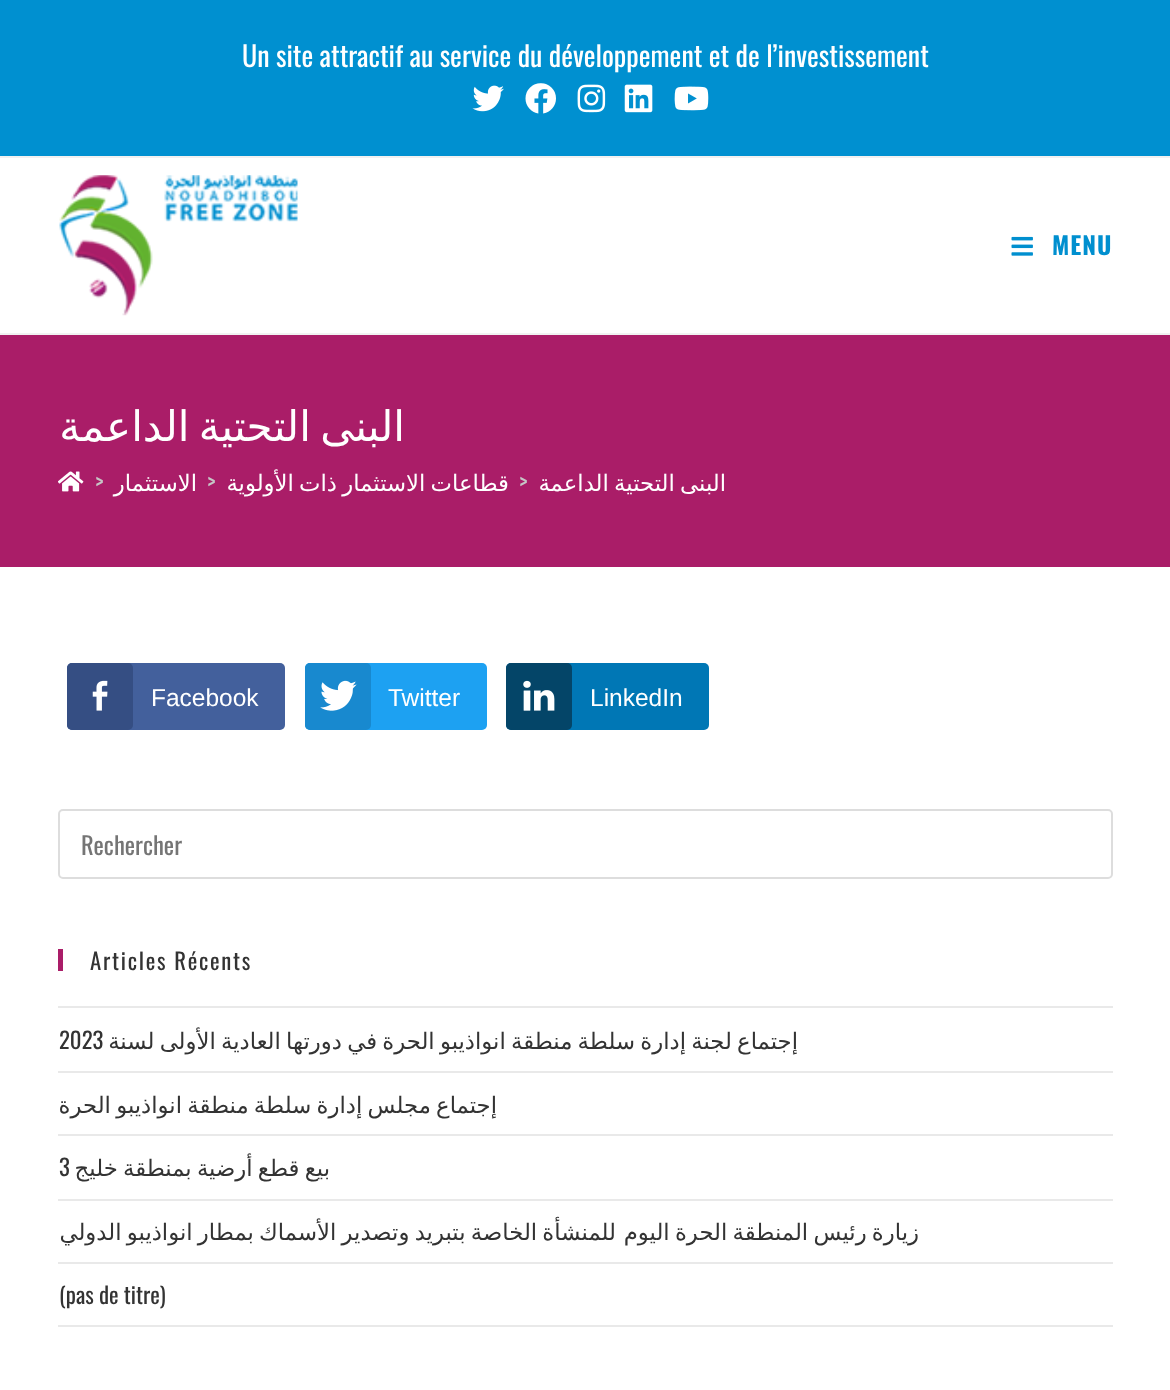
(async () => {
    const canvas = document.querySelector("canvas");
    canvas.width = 1170;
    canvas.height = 1390;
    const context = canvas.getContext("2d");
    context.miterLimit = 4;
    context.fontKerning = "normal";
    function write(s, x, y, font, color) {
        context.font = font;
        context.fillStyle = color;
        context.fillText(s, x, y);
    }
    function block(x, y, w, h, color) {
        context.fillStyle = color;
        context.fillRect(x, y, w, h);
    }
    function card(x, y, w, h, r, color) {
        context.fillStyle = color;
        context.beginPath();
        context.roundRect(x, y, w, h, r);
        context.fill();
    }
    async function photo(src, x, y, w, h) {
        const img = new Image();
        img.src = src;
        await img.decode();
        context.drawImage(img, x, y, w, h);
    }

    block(0, 0, 1170, 1390, "rgb(255, 255, 255)");
    block(0, 0, 1170, 156, "rgb(0, 144, 208)");
    block(0, 156, 1170, 2, "rgb(241, 241, 241)");
    write("Un site attractif au service du développement et de l’investissement", 242, 67, "28px Oswald", "rgb(255, 255, 255)");
    await photo("media/1.png", 674, 86, 35, 25);
    await photo("media/2.png", 624, 84, 29, 29);
    await photo("media/3.png", 577, 84, 29, 29);
    await photo("media/4.png", 525, 83, 31, 31);
    await photo("media/5.png", 472, 85, 32, 27);
    block(0, 333, 1170, 2, "rgb(241, 241, 241)");
    context.letterSpacing = "1px";
    write("MENU", 1052, 255, "bold 24.5px Oswald", "rgb(0, 143, 207)");
    await photo("media/6.png", 1011, 236, 22, 20);
    await photo("media/7.png", 59, 175, 239, 141);
    block(0, 335, 1170, 232, "rgb(170, 29, 104)");
    context.letterSpacing = "0px";
    context.wordSpacing = "-4px";
    context.direction = "rtl";
    write("البنى التحتية الداعمة", 405, 441, "42px DejaVu Sans", "rgb(255, 255, 255)");
    context.wordSpacing = "-2px";
    write("البنى التحتية الداعمة", 726, 491, "22.75px DejaVu Sans", "rgb(255, 255, 255)");
    context.wordSpacing = "0px";
    context.direction = "ltr";
    write(">", 519, 491, "22.75px Oswald", "rgb(198, 198, 198)");
    context.wordSpacing = "-2px";
    context.direction = "rtl";
    write("قطاعات الاستثمار ذات الأولوية", 509, 491, "22.75px DejaVu Sans", "rgb(255, 255, 255)");
    context.wordSpacing = "0px";
    context.direction = "ltr";
    write(">", 207, 491, "22.75px Oswald", "rgb(198, 198, 198)");
    context.direction = "rtl";
    write("الاستثمار", 197, 491, "22.75px DejaVu Sans", "rgb(255, 255, 255)");
    context.direction = "ltr";
    write(">", 95, 491, "22.75px Oswald", "rgb(198, 198, 198)");
    await photo("media/8.png", 58, 471, 26, 21);
    card(506, 663, 203, 67, 5, "rgb(0, 119, 181)");
    card(506, 663, 66, 67, 5, "rgb(4, 69, 104)");
    write("LinkedIn", 590, 706, "24.5px Liberation Sans", "rgb(255, 255, 255)");
    await photo("media/9.png", 523, 680, 32, 31);
    card(305, 663, 182, 67, 5, "rgb(29, 161, 242)");
    card(305, 663, 66, 67, 5, "rgb(24, 137, 207)");
    write("Twitter", 388, 706, "24.5px Liberation Sans", "rgb(255, 255, 255)");
    await photo("media/10.png", 320, 680, 37, 31);
    card(67, 663, 218, 67, 5, "rgb(67, 96, 156)");
    card(67, 663, 66, 67, 5, "rgb(53, 78, 131)");
    write("Facebook", 151, 706, "24.5px Liberation Sans", "rgb(255, 255, 255)");
    await photo("media/11.png", 92, 680, 16, 31);
    context.beginPath();
    context.roundRect(59, 810, 1053, 68, 4);
    context.strokeStyle = "rgb(221, 221, 221)";
    context.lineWidth = 2;
    context.stroke();
    write("Rechercher", 81, 855, "24.5px Oswald", "rgb(117, 117, 117)");
    block(58, 949, 5, 22, "rgb(170, 29, 104)");
    context.letterSpacing = "1.75px";
    write("Articles Récents", 90, 970, "22.75px Oswald", "rgb(51, 51, 51)");
    block(58, 1006, 1055, 2, "rgb(233, 233, 233)");
    block(58, 1071, 1055, 2, "rgb(233, 233, 233)");
    context.letterSpacing = "0px";
    context.wordSpacing = "-2px";
    context.direction = "rtl";
    write("إجتماع لجنة إدارة سلطة منطقة انواذيبو الحرة في دورتها العادية الأولى لسنة", 798, 1049, "22.75px DejaVu Sans", "rgb(51, 51, 51)");
    context.wordSpacing = "0px";
    context.direction = "ltr";
    write("2023", 59, 1049, "22.75px Oswald", "rgb(51, 51, 51)");
    block(58, 1134, 1055, 2, "rgb(233, 233, 233)");
    context.wordSpacing = "-2px";
    context.direction = "rtl";
    write("إجتماع مجلس إدارة سلطة منطقة انواذيبو الحرة", 497, 1113, "22.75px DejaVu Sans", "rgb(51, 51, 51)");
    block(58, 1199, 1055, 2, "rgb(233, 233, 233)");
    write("بيع قطع أرضية بمنطقة خليج", 330, 1176, "22.75px DejaVu Sans", "rgb(51, 51, 51)");
    context.wordSpacing = "0px";
    context.direction = "ltr";
    write("3", 59, 1176, "22.75px Oswald", "rgb(51, 51, 51)");
    block(58, 1262, 1055, 2, "rgb(233, 233, 233)");
    context.wordSpacing = "-2px";
    context.direction = "rtl";
    write("للمنشأة الخاصة بتبريد وتصدير الأسماك بمطار انواذيبو الدولي", 616, 1240, "22.75px DejaVu Sans", "rgb(51, 51, 51)");
    write("زيارة رئيس المنطقة الحرة اليوم", 919, 1240, "22.75px DejaVu Sans", "rgb(51, 51, 51)");
    block(58, 1325, 1055, 2, "rgb(233, 233, 233)");
    context.wordSpacing = "0px";
    context.direction = "ltr";
    write("(pas de titre)", 59, 1304, "22.75px Oswald", "rgb(51, 51, 51)");
})();
